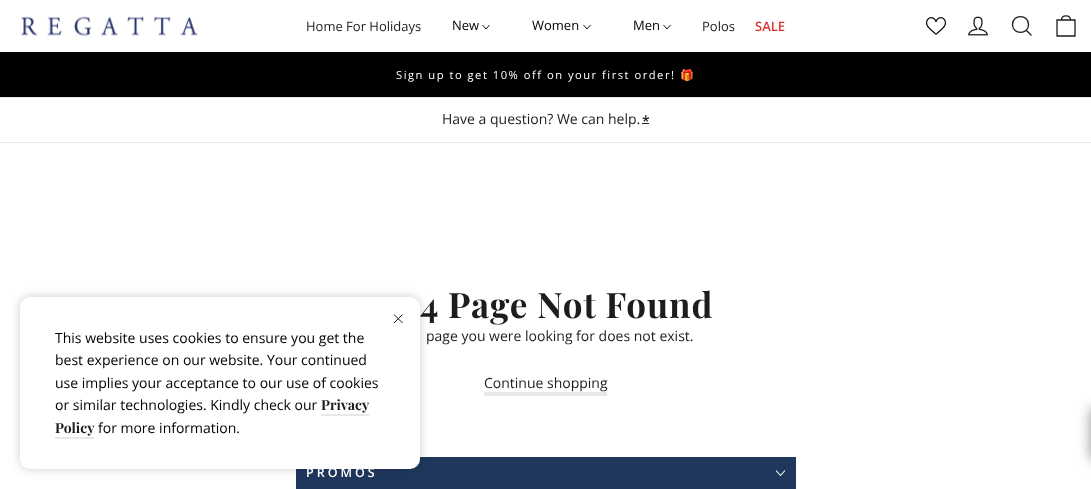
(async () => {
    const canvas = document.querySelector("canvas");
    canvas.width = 1091;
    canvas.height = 489;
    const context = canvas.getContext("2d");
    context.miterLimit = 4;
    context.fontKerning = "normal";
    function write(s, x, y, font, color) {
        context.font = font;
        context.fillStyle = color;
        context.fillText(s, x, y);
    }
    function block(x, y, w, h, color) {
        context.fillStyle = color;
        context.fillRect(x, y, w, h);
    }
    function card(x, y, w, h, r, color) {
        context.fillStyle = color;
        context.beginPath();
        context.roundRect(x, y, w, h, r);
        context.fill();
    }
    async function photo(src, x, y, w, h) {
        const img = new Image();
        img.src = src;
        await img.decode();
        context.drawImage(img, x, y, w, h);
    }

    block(0, 0, 1091, 489, "rgb(255, 255, 255)");
    await photo("media/1.png", 21, 16, 177, 20);
    write("Home For Holidays", 306, 31, "13px Open Sans", "rgb(28, 29, 29)");
    write("New", 452, 30, "13px Open Sans", "rgb(0, 0, 0)");
    context.beginPath();
    context.moveTo(482.5, 25);
    context.lineTo(486, 29);
    context.lineTo(489.5, 25);
    context.strokeStyle = "rgb(0, 0, 0)";
    context.lineWidth = 0.9;
    context.stroke();
    write("Women", 532, 30, "13px Open Sans", "rgb(0, 0, 0)");
    context.beginPath();
    context.moveTo(583.5, 25);
    context.lineTo(587, 29);
    context.lineTo(590.5, 25);
    context.stroke();
    write("Men", 633, 30, "13px Open Sans", "rgb(0, 0, 0)");
    context.beginPath();
    context.moveTo(663.5, 25);
    context.lineTo(667, 29);
    context.lineTo(670.5, 25);
    context.stroke();
    write("Polos", 702, 31, "13px Open Sans", "rgb(28, 29, 29)");
    write("SALE", 755, 31, "600 13px Open Sans", "rgb(220, 52, 50)");
    await photo("media/2.png", 926, 17, 20, 18);
    await photo("media/3.png", 968, 16, 20, 20);
    context.beginPath();
    context.moveTo(1028.5, 24.5);
    context.bezierCurveTo(1028.5, 35, 1012.5, 35, 1012.5, 24.5);
    context.bezierCurveTo(1012.5, 14, 1028.5, 14, 1028.5, 24.5);
    context.closePath();
    context.moveTo(1031.5, 35.5);
    context.lineTo(1026.5, 30.5);
    context.strokeStyle = "rgb(28, 29, 29)";
    context.lineWidth = 1.3;
    context.stroke();
    context.beginPath();
    context.moveTo(1057, 20);
    context.lineTo(1075, 20);
    context.lineTo(1075, 36);
    context.lineTo(1057, 36);
    context.closePath();
    context.moveTo(1061.5, 20);
    context.bezierCurveTo(1061.5, 14.5, 1070.5, 14.5, 1070.5, 20);
    context.stroke();
    block(0, 52, 1091, 45, "rgb(0, 0, 0)");
    context.letterSpacing = "1.5px";
    write("Sign up to get 10% off on your first order!", 396, 79, "11.2px Open Sans", "rgb(255, 255, 255)");
    write("🎁", 680, 79, "11.2px Noto Color Emoji", "rgb(255, 255, 255)");
    block(0, 97, 1091, 1, "rgb(232, 232, 225)");
    block(0, 142, 1091, 1, "rgb(232, 232, 225)");
    context.letterSpacing = "0px";
    write("Have a question? We can help.", 442, 124, "14px Open Sans", "rgb(28, 29, 29)");
    write("*", 642, 126, "600 14px Open Sans", "rgb(28, 29, 29)");
    block(642, 123, 7, 1, "rgb(28, 29, 29)");
    block(296, 457, 500, 32, "rgb(32, 55, 93)");
    context.fillStyle = "rgba(0, 0, 0, 0.2)";
    context.filter = "blur(5px)";
    context.beginPath();
    context.roundRect(20, 297, 400, 172, 10);
    context.fill();
    context.filter = "none";
    card(20, 297, 400, 172, 10, "rgb(255, 255, 255)");
    context.beginPath();
    context.moveTo(394, 314.5);
    context.lineTo(402.5, 323);
    context.moveTo(402.5, 314.5);
    context.lineTo(394, 323);
    context.strokeStyle = "rgb(0, 0, 0)";
    context.lineWidth = 0.9;
    context.stroke();
    write("This website uses cookies to ensure you get the", 55, 343, "14px Open Sans", "rgb(0, 0, 0)");
    write("best experience on our website. Your continued", 55, 365, "14px Open Sans", "rgb(0, 0, 0)");
    write("use implies your acceptance to our use of cookies", 55, 388, "14px Open Sans", "rgb(0, 0, 0)");
    write("or similar technologies. Kindly check our", 55, 410, "14px Open Sans", "rgb(0, 0, 0)");
    write("Privacy", 321, 410, "bold 14px Playfair Display", "rgb(28, 29, 29)");
    block(321, 414, 48, 2, "rgb(232, 232, 232)");
    write("Policy", 55, 433, "bold 14px Playfair Display", "rgb(28, 29, 29)");
    block(55, 437, 39, 2, "rgb(232, 232, 232)");
    write("for more information.", 98, 433, "14px Open Sans", "rgb(0, 0, 0)");
    context.letterSpacing = "0.9px";
    write("4 Page Not Found", 420, 318, "bold 35px Playfair Display", "rgb(28, 29, 29)");
    context.letterSpacing = "0px";
    write("page you were looking for does not exist.", 426, 341, "14px Open Sans", "rgb(28, 29, 29)");
    write("Continue shopping", 484, 388, "14px Open Sans", "rgb(28, 29, 29)");
    block(484, 392, 123, 4, "rgb(232, 232, 232)");
    context.letterSpacing = "3px";
    write("PROMOS", 306, 477, "600 12.5px Open Sans", "rgb(255, 255, 255)");
    context.beginPath();
    context.moveTo(776, 470.5);
    context.lineTo(780.5, 475.5);
    context.lineTo(785, 470.5);
    context.strokeStyle = "rgb(255, 255, 255)";
    context.lineWidth = 1.1;
    context.stroke();
    context.fillStyle = "rgba(117, 117, 117, 0.5)";
    context.filter = "blur(7px)";
    context.beginPath();
    context.rect(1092, 409, 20, 50);
    context.fill();
    context.filter = "none";
    context.filter = "blur(7px)";
    context.beginPath();
    context.rect(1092, 409, 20, 50);
    context.fill();
    context.filter = "none";
})();
